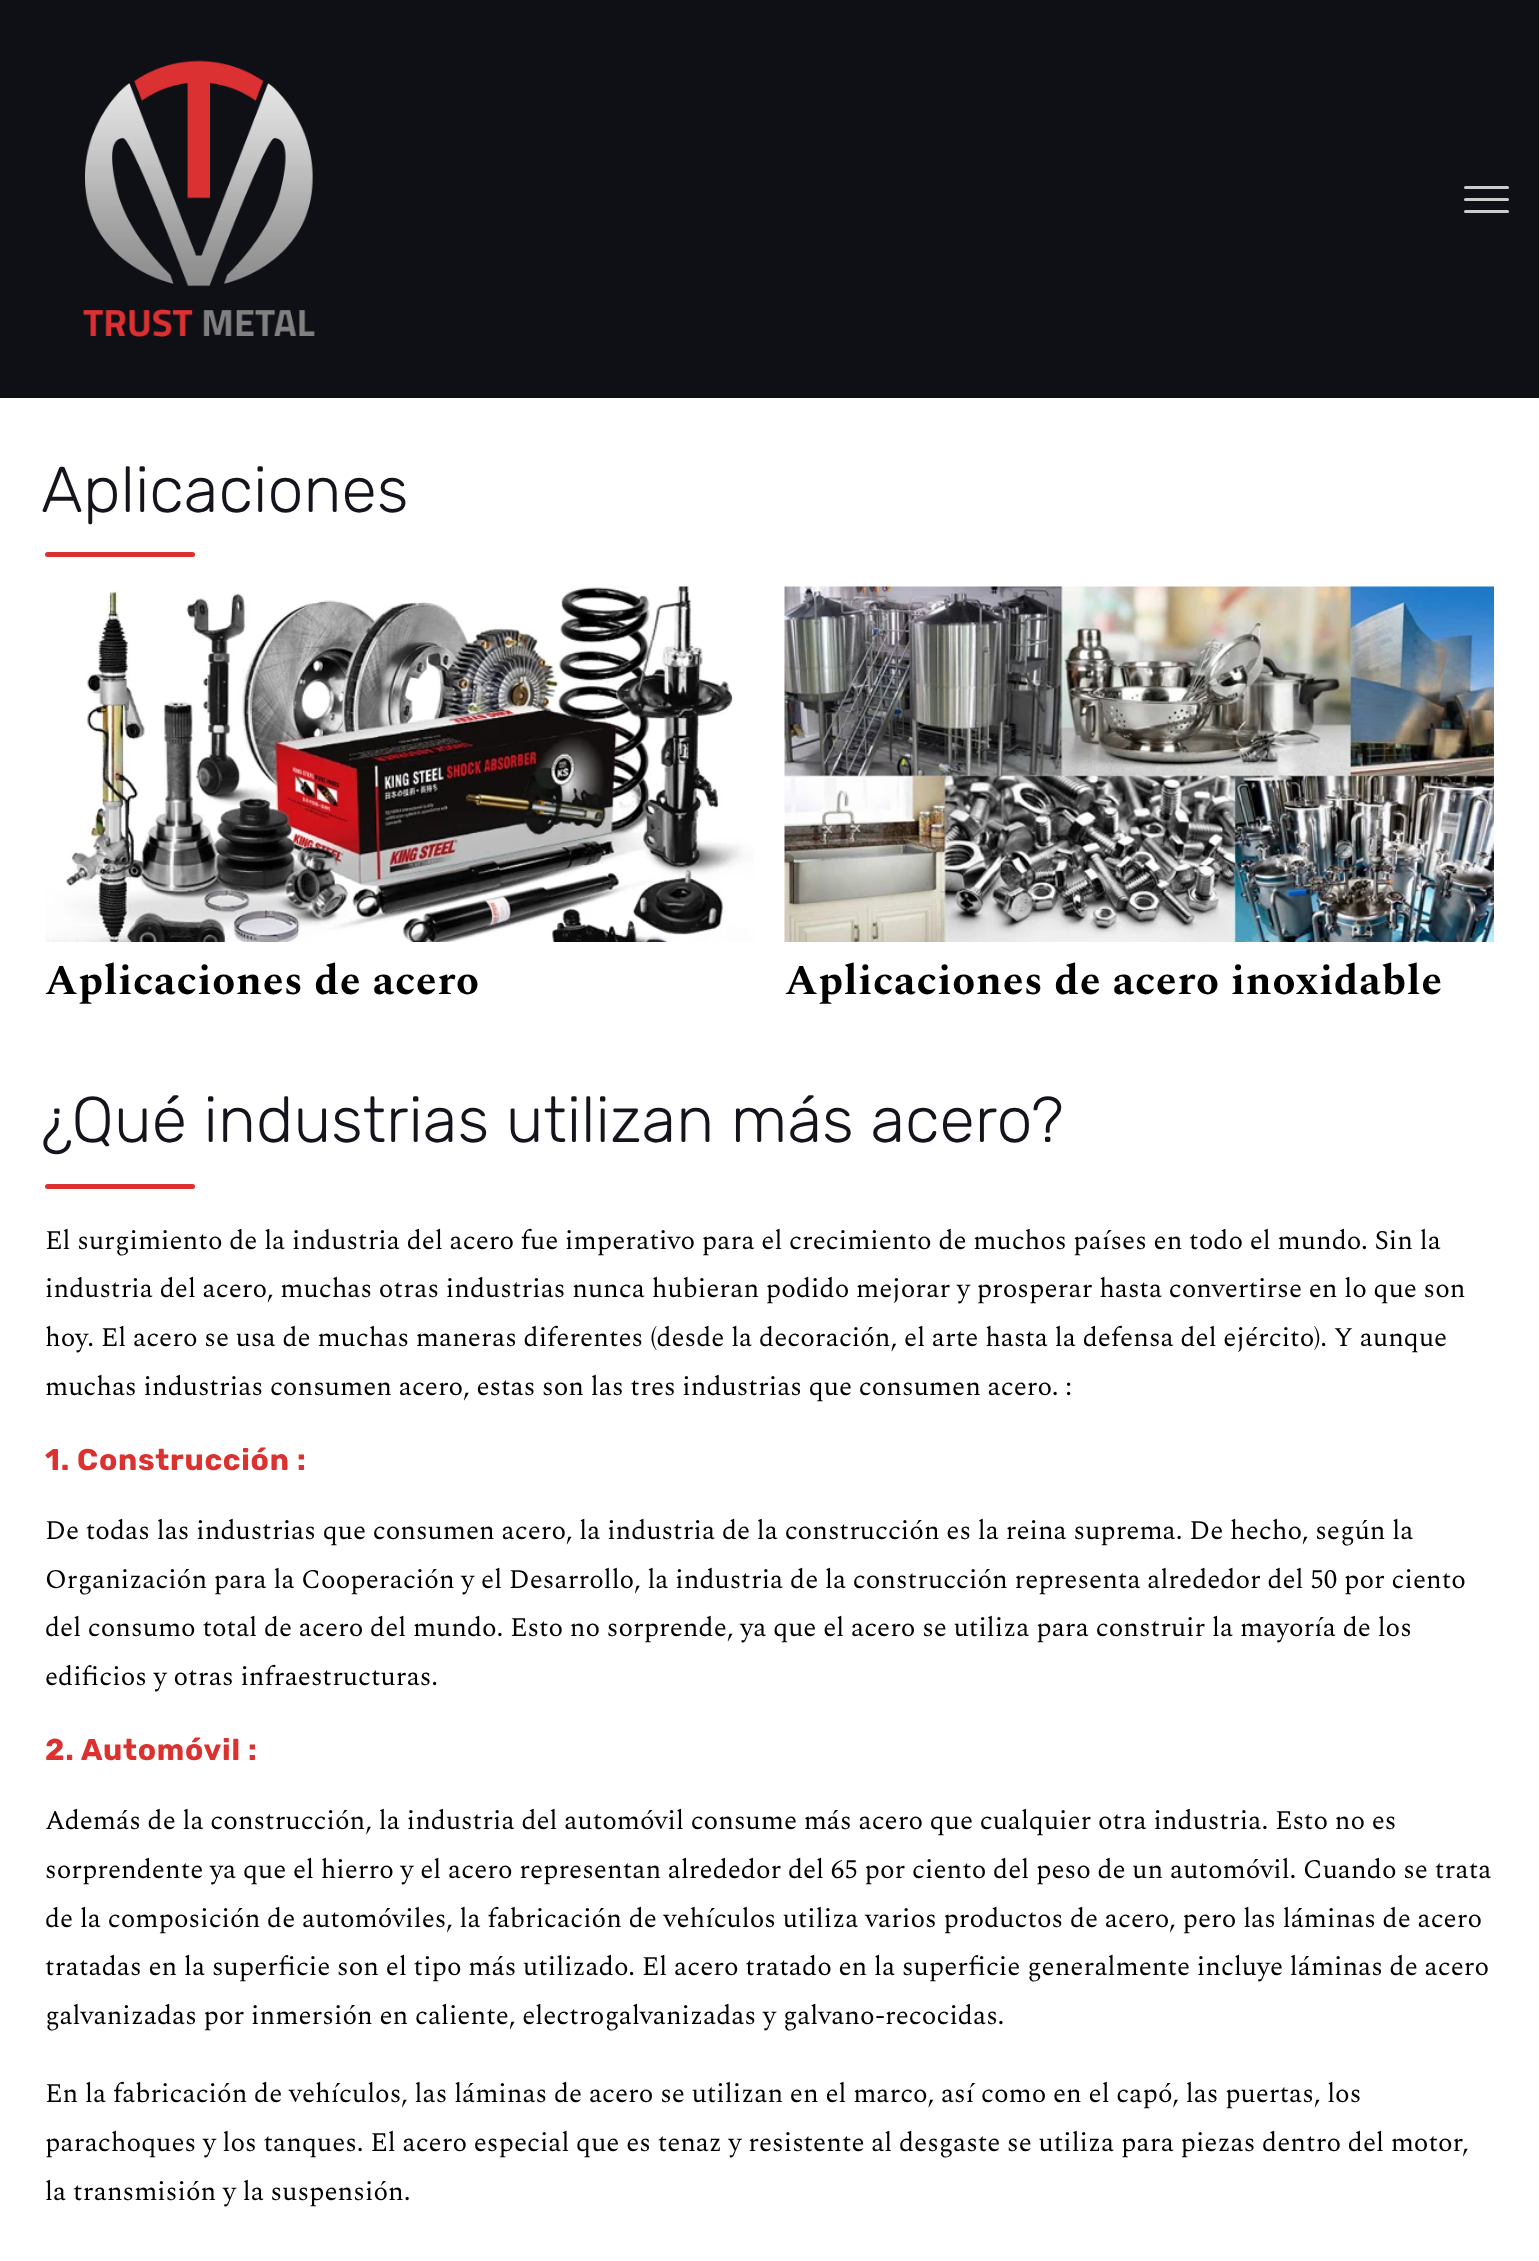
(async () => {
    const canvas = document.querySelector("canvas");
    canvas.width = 1539;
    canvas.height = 2261;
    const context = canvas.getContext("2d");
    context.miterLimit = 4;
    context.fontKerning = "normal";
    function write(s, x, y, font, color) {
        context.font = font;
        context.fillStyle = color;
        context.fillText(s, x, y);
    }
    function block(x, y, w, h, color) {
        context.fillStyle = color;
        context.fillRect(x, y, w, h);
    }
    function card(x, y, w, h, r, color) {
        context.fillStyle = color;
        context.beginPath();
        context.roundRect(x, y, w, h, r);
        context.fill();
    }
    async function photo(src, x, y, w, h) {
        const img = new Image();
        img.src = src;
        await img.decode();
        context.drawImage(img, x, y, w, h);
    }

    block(0, 0, 1539, 2261, "rgb(255, 255, 255)");
    block(0, 0, 1539, 398, "rgb(15, 15, 22)");
    await photo("media/1.png", 83, 60, 232, 277);
    card(1464, 210, 45, 3, 1.5, "rgb(204, 204, 204)");
    card(1464, 186, 45, 3, 1.5, "rgb(204, 204, 204)");
    card(1464, 198, 45, 3, 1.5, "rgb(204, 204, 204)");
    write("Aplicaciones", 41, 512, "300 64.5px 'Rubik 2'", "rgb(20, 20, 28)");
    card(45, 552, 150, 5, 2.5, "rgb(219, 49, 49)");
    await photo("media/2.png", 45, 586, 709, 356);
    context.letterSpacing = "0.75px";
    write("Aplicaciones de acero", 45, 994, "bold 42px Spectral", "rgb(0, 0, 0)");
    await photo("media/3.png", 784, 586, 710, 356);
    write("Aplicaciones de acero inoxidable", 785, 994, "bold 42px Spectral", "rgb(0, 0, 0)");
    context.letterSpacing = "0px";
    write("¿Qué industrias utilizan más acero?", 41, 1142, "300 64.5px 'Rubik 2'", "rgb(20, 20, 28)");
    card(45, 1184, 150, 5, 2.5, "rgb(219, 49, 49)");
    write("El surgimiento de la industria del acero fue imperativo para el crecimiento de muchos países en todo el mundo. Sin la", 45, 1249, "27px Spectral", "rgb(0, 0, 0)");
    write("industria del acero, muchas otras industrias nunca hubieran podido mejorar y prosperar hasta convertirse en lo que son", 45, 1297, "27px Spectral", "rgb(0, 0, 0)");
    write("hoy. El acero se usa de muchas maneras diferentes (desde la decoración, el arte hasta la defensa del ejército). Y aunque", 45, 1346, "27px Spectral", "rgb(0, 0, 0)");
    write("muchas industrias consumen acero, estas son las tres industrias que consumen acero. :", 45, 1395, "27px Spectral", "rgb(0, 0, 0)");
    context.letterSpacing = "0.75px";
    write("1. Construcción :", 45, 1470, "300 30px Rubik", "rgb(219, 49, 47)");
    context.letterSpacing = "0px";
    write("De todas las industrias que consumen acero, la industria de la construcción es la reina suprema. De hecho, según la", 45, 1539, "27px Spectral", "rgb(0, 0, 0)");
    write("Organización para la Cooperación y el Desarrollo, la industria de la construcción representa alrededor del 50 por ciento", 45, 1588, "27px Spectral", "rgb(0, 0, 0)");
    write("del consumo total de acero del mundo. Esto no sorprende, ya que el acero se utiliza para construir la mayoría de los", 45, 1636, "27px Spectral", "rgb(0, 0, 0)");
    write("edificios y otras infraestructuras.", 45, 1685, "27px Spectral", "rgb(0, 0, 0)");
    context.letterSpacing = "0.75px";
    write("2. Automóvil :", 45, 1760, "300 30px Rubik", "rgb(219, 49, 47)");
    context.letterSpacing = "0px";
    write("Además de la construcción, la industria del automóvil consume más acero que cualquier otra industria. Esto no es", 45, 1829, "27px Spectral", "rgb(0, 0, 0)");
    write("sorprendente ya que el hierro y el acero representan alrededor del 65 por ciento del peso de un automóvil. Cuando se trata", 45, 1878, "27px Spectral", "rgb(0, 0, 0)");
    write("de la composición de automóviles, la fabricación de vehículos utiliza varios productos de acero, pero las láminas de acero", 45, 1927, "27px Spectral", "rgb(0, 0, 0)");
    write("tratadas en la superficie son el tipo más utilizado. El acero tratado en la superficie generalmente incluye láminas de acero", 45, 1975, "27px Spectral", "rgb(0, 0, 0)");
    write("galvanizadas por inmersión en caliente, electrogalvanizadas y galvano-recocidas.", 45, 2024, "27px Spectral", "rgb(0, 0, 0)");
    write("En la fabricación de vehículos, las láminas de acero se utilizan en el marco, así como en el capó, las puertas, los", 45, 2102, "27px Spectral", "rgb(0, 0, 0)");
    write("parachoques y los tanques. El acero especial que es tenaz y resistente al desgaste se utiliza para piezas dentro del motor,", 45, 2151, "27px Spectral", "rgb(0, 0, 0)");
    write("la transmisión y la suspensión.", 45, 2200, "27px Spectral", "rgb(0, 0, 0)");
})();
